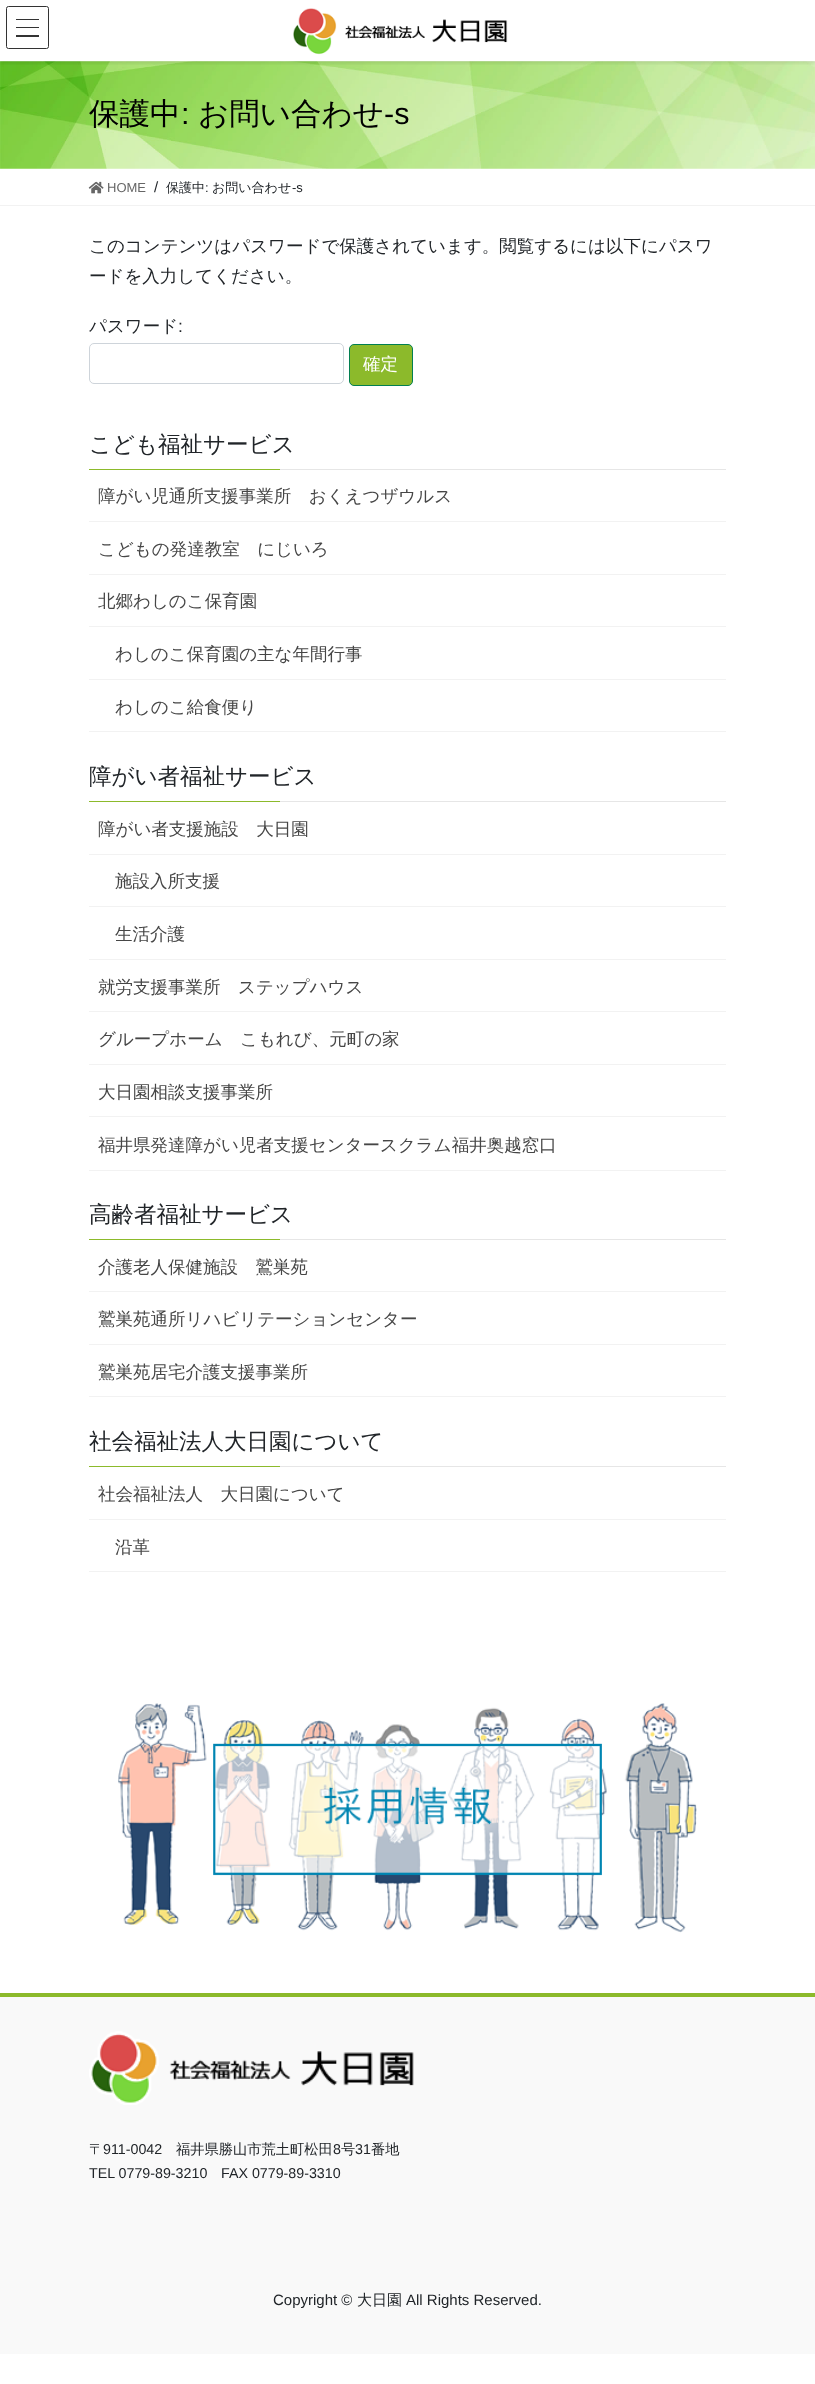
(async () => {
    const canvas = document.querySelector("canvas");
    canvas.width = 815;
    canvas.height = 2384;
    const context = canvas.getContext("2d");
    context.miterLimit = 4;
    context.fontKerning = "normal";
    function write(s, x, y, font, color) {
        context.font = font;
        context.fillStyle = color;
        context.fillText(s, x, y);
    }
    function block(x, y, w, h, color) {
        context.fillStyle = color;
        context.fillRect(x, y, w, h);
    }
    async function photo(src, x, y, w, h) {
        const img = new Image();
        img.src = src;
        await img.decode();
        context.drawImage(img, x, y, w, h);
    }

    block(0, 0, 815, 2384, "rgb(255, 255, 255)");
    await photo("media/2.png", 0, 61, 815, 108);
    context.save();
    context.beginPath();
    context.rect(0, 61, 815, 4);
    context.clip();
    context.fillStyle = "rgba(0, 0, 0, 0.1)";
    context.filter = "blur(2px)";
    context.beginPath();
    context.rect(0, 1, 815, 62);
    context.fill();
    context.filter = "none";
    context.restore();
    await photo("media/1.png", 293, 8, 215, 47);
    block(16, 19, 23, 1, "rgb(51, 51, 51)");
    block(16, 27, 23, 1, "rgb(51, 51, 51)");
    block(16, 35, 23, 2, "rgb(51, 51, 51)");
    context.beginPath();
    context.roundRect(6.5, 6.5, 42, 42, 2);
    context.strokeStyle = "rgb(51, 51, 51)";
    context.stroke();
    write("保護中", 89, 124, "500 30.5px WenQuanYi Zen Hei", "rgb(0, 0, 0)");
    write(":", 181, 124, "30.5px Liberation Sans", "rgb(0, 0, 0)");
    write("お問い合わせ", 198, 124, "500 30.5px WenQuanYi Zen Hei", "rgb(0, 0, 0)");
    write("-s", 384, 124, "30.5px Liberation Sans", "rgb(0, 0, 0)");
    block(0, 205, 815, 1, "rgb(242, 242, 242)");
    await photo("media/3.png", 88, 181, 16, 13);
    write("HOME", 107, 192, "13px Liberation Sans", "rgb(102, 102, 102)");
    write("/", 154, 192, "15px Liberation Sans", "rgb(33, 37, 41)");
    write("保護中", 166, 192, "500 13px WenQuanYi Zen Hei", "rgb(33, 37, 41)");
    write(":", 205, 192, "13px Liberation Sans", "rgb(33, 37, 41)");
    write("お問い合わせ", 212, 192, "500 13px WenQuanYi Zen Hei", "rgb(33, 37, 41)");
    write("-s", 292, 192, "13px Liberation Sans", "rgb(33, 37, 41)");
    write("このコンテンツはパスワードで保護されています。閲覧するには以下にパスワ", 89, 252, "500 17.5px WenQuanYi Zen Hei", "rgb(33, 37, 41)");
    write("ードを入力してください。", 89, 282, "500 17.5px WenQuanYi Zen Hei", "rgb(33, 37, 41)");
    write("パスワード", 89, 332, "500 17.5px WenQuanYi Zen Hei", "rgb(33, 37, 41)");
    write(":", 178, 332, "17.5px Liberation Sans", "rgb(33, 37, 41)");
    context.beginPath();
    context.roundRect(89.5, 343.5, 254, 40, 4.5);
    context.strokeStyle = "rgb(206, 212, 218)";
    context.stroke();
    context.fillStyle = "rgb(140, 186, 43)";
    context.beginPath();
    context.roundRect(349.5, 344.5, 63, 41, 4.5);
    context.fill();
    context.strokeStyle = "rgb(2, 127, 81)";
    context.stroke();
    write("確定", 363, 370, "500 17.5px WenQuanYi Zen Hei", "rgb(255, 255, 255)");
    block(280, 469, 446, 1, "rgb(230, 230, 230)");
    write("こども福祉サービス", 89, 452, "500 22.5px WenQuanYi Zen Hei", "rgb(33, 37, 41)");
    block(89, 469, 191, 1, "rgb(140, 186, 43)");
    block(89, 521, 637, 1, "rgb(242, 242, 242)");
    write("障がい児通所支援事業所　おくえつザウルス", 98, 502, "500 17.5px WenQuanYi Zen Hei", "rgb(70, 70, 70)");
    block(89, 574, 637, 1, "rgb(242, 242, 242)");
    write("こどもの発達教室　にじいろ", 98, 555, "500 17.5px WenQuanYi Zen Hei", "rgb(70, 70, 70)");
    block(89, 626, 637, 1, "rgb(242, 242, 242)");
    write("北郷わしのこ保育園", 98, 607, "500 17.5px WenQuanYi Zen Hei", "rgb(70, 70, 70)");
    block(89, 679, 637, 1, "rgb(242, 242, 242)");
    write("わしのこ保育園の主な年間行事", 115, 660, "500 17.5px WenQuanYi Zen Hei", "rgb(70, 70, 70)");
    block(89, 731, 637, 1, "rgb(242, 242, 242)");
    write("わしのこ給食便り", 115, 713, "500 17.5px WenQuanYi Zen Hei", "rgb(70, 70, 70)");
    block(280, 801, 446, 1, "rgb(230, 230, 230)");
    write("障がい者福祉サービス", 89, 784, "500 22.5px WenQuanYi Zen Hei", "rgb(33, 37, 41)");
    block(89, 801, 191, 1, "rgb(140, 186, 43)");
    block(89, 854, 637, 1, "rgb(242, 242, 242)");
    write("障がい者支援施設　大日園", 98, 835, "500 17.5px WenQuanYi Zen Hei", "rgb(70, 70, 70)");
    block(89, 906, 637, 1, "rgb(242, 242, 242)");
    write("施設入所支援", 115, 887, "500 17.5px WenQuanYi Zen Hei", "rgb(70, 70, 70)");
    block(89, 959, 637, 1, "rgb(242, 242, 242)");
    write("生活介護", 115, 940, "500 17.5px WenQuanYi Zen Hei", "rgb(70, 70, 70)");
    block(89, 1011, 637, 1, "rgb(242, 242, 242)");
    write("就労支援事業所　ステップハウス", 98, 993, "500 17.5px WenQuanYi Zen Hei", "rgb(70, 70, 70)");
    block(89, 1064, 637, 1, "rgb(242, 242, 242)");
    write("グループホーム　こもれび、元町の家", 98, 1045, "500 17.5px WenQuanYi Zen Hei", "rgb(70, 70, 70)");
    block(89, 1116, 637, 1, "rgb(242, 242, 242)");
    write("大日園相談支援事業所", 98, 1098, "500 17.5px WenQuanYi Zen Hei", "rgb(70, 70, 70)");
    block(89, 1170, 637, 1, "rgb(242, 242, 242)");
    write("福井県発達障がい児者支援センタースクラム福井奥越窓口", 98, 1151, "500 17.5px WenQuanYi Zen Hei", "rgb(70, 70, 70)");
    block(280, 1239, 446, 1, "rgb(230, 230, 230)");
    write("高齢者福祉サービス", 89, 1222, "500 22.5px WenQuanYi Zen Hei", "rgb(33, 37, 41)");
    block(89, 1239, 191, 1, "rgb(140, 186, 43)");
    block(89, 1291, 637, 1, "rgb(242, 242, 242)");
    write("介護老人保健施設　鷲巣苑", 98, 1273, "500 17.5px WenQuanYi Zen Hei", "rgb(70, 70, 70)");
    block(89, 1344, 637, 1, "rgb(242, 242, 242)");
    write("鷲巣苑通所リハビリテーションセンター", 98, 1325, "500 17.5px WenQuanYi Zen Hei", "rgb(70, 70, 70)");
    block(89, 1396, 637, 1, "rgb(242, 242, 242)");
    write("鷲巣苑居宅介護支援事業所", 98, 1378, "500 17.5px WenQuanYi Zen Hei", "rgb(70, 70, 70)");
    block(280, 1466, 446, 1, "rgb(230, 230, 230)");
    write("社会福祉法人大日園について", 89, 1449, "500 22.5px WenQuanYi Zen Hei", "rgb(33, 37, 41)");
    block(89, 1466, 191, 1, "rgb(140, 186, 43)");
    block(89, 1519, 637, 1, "rgb(242, 242, 242)");
    write("社会福祉法人　大日園について", 98, 1500, "500 17.5px WenQuanYi Zen Hei", "rgb(70, 70, 70)");
    block(89, 1571, 637, 1, "rgb(242, 242, 242)");
    write("沿革", 115, 1553, "500 17.5px WenQuanYi Zen Hei", "rgb(70, 70, 70)");
    await photo("media/4.png", 118, 1703, 579, 230);
    block(0, 1997, 815, 357, "rgb(249, 249, 249)");
    block(0, 1993, 815, 4, "rgb(140, 186, 43)");
    await photo("media/5.png", 89, 2031, 325, 74);
    write("〒", 89, 2154, "500 14.25px WenQuanYi Zen Hei", "rgb(33, 37, 41)");
    write("911-0042", 103, 2154, "14.25px Liberation Sans", "rgb(33, 37, 41)");
    write("福井県勝山市荒土町松田", 176, 2154, "500 14.25px WenQuanYi Zen Hei", "rgb(33, 37, 41)");
    write("8", 333, 2154, "14.25px Liberation Sans", "rgb(33, 37, 41)");
    write("号", 341, 2154, "500 14.25px WenQuanYi Zen Hei", "rgb(33, 37, 41)");
    write("31", 355, 2154, "14.25px Liberation Sans", "rgb(33, 37, 41)");
    write("番地", 371, 2154, "500 14.25px WenQuanYi Zen Hei", "rgb(33, 37, 41)");
    write("TEL 0779-89-3210", 89, 2178, "14.25px Liberation Sans", "rgb(33, 37, 41)");
    write("FAX 0779-89-3310", 221, 2178, "14.25px Liberation Sans", "rgb(33, 37, 41)");
    write("Copyright ©", 273, 2305, "15px Liberation Sans", "rgb(33, 37, 41)");
    write("大日園", 357, 2305, "500 15px WenQuanYi Zen Hei", "rgb(33, 37, 41)");
    write("All Rights Reserved.", 406, 2305, "15px Liberation Sans", "rgb(33, 37, 41)");
})();
